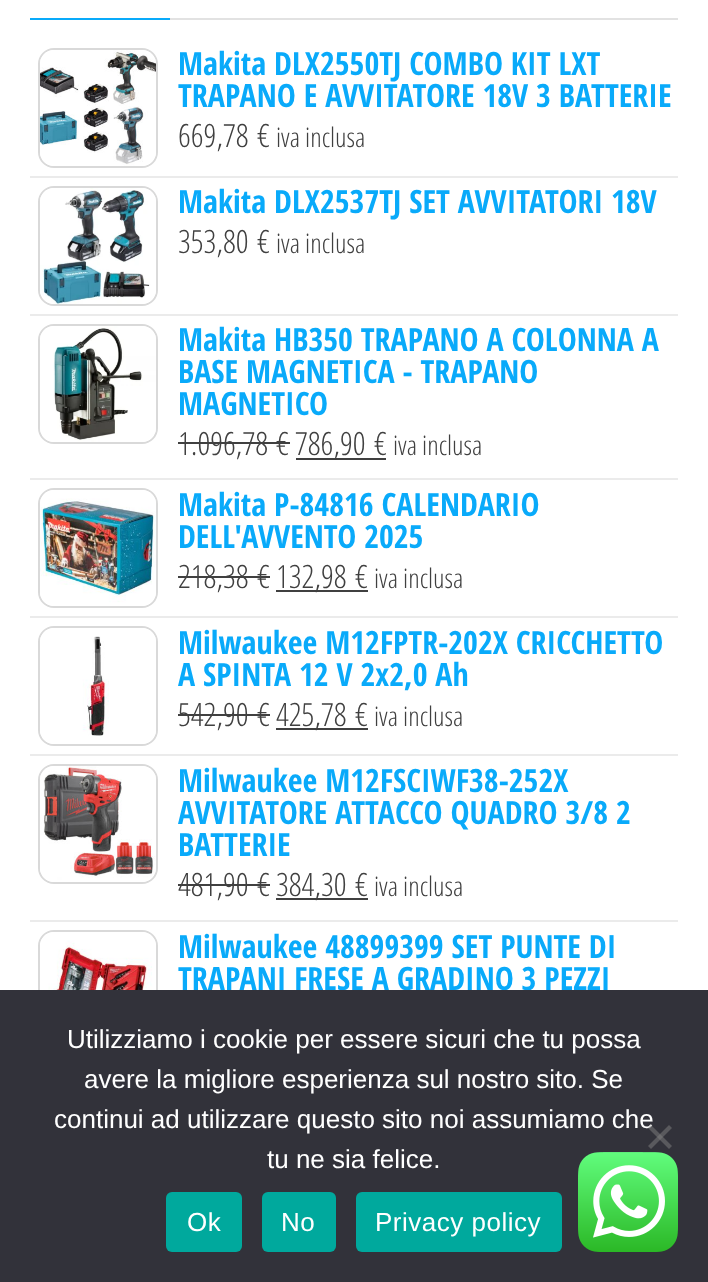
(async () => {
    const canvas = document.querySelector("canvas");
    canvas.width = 708;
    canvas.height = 1282;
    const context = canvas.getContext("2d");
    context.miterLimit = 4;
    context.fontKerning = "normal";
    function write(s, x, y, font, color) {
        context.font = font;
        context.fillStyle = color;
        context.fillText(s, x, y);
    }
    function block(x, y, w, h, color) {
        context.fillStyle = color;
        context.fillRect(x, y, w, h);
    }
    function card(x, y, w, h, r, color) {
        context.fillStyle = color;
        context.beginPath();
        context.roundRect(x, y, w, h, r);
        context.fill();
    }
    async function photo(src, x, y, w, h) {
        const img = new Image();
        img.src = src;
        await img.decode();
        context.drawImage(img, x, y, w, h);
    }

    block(0, 0, 708, 1282, "rgb(255, 255, 255)");
    block(170, 18, 508, 2, "rgb(226, 226, 226)");
    block(30, 18, 140, 2, "rgb(9, 170, 250)");
    block(30, 176, 648, 2, "rgb(235, 235, 235)");
    context.beginPath();
    context.roundRect(39, 49, 118, 118, 15);
    context.strokeStyle = "rgb(217, 217, 217)";
    context.lineWidth = 2;
    context.stroke();
    await photo("media/1.png", 40, 50, 116, 116);
    write("Makita DLX2550TJ COMBO KIT LXT", 178, 75, "bold 32px Open Sans Condensed", "rgb(9, 170, 250)");
    write("TRAPANO E AVVITATORE 18V 3 BATTERIE", 178, 107, "bold 32px Open Sans Condensed", "rgb(9, 170, 250)");
    write("669,78", 178, 147, "300 32px Open Sans Condensed", "rgb(64, 64, 64)");
    write("€", 257, 147, "300 32px Open Sans Condensed", "rgb(64, 64, 64)");
    write("iva inclusa", 276, 147, "300 27px Open Sans Condensed", "rgb(64, 64, 64)");
    block(30, 314, 648, 2, "rgb(235, 235, 235)");
    context.beginPath();
    context.roundRect(39, 187, 118, 118, 15);
    context.stroke();
    await photo("media/2.png", 40, 188, 116, 116);
    write("Makita DLX2537TJ SET AVVITATORI 18V", 178, 213, "bold 32px Open Sans Condensed", "rgb(9, 170, 250)");
    write("353,80", 178, 253, "300 32px Open Sans Condensed", "rgb(64, 64, 64)");
    write("€", 257, 253, "300 32px Open Sans Condensed", "rgb(64, 64, 64)");
    write("iva inclusa", 276, 253, "300 27px Open Sans Condensed", "rgb(64, 64, 64)");
    block(30, 478, 648, 2, "rgb(235, 235, 235)");
    context.beginPath();
    context.roundRect(39, 325, 118, 118, 15);
    context.stroke();
    await photo("media/3.png", 40, 326, 116, 116);
    write("Makita HB350 TRAPANO A COLONNA A", 178, 351, "bold 32px Open Sans Condensed", "rgb(9, 170, 250)");
    write("BASE MAGNETICA - TRAPANO", 178, 383, "bold 32px Open Sans Condensed", "rgb(9, 170, 250)");
    write("MAGNETICO", 178, 415, "bold 32px Open Sans Condensed", "rgb(9, 170, 250)");
    write("1.096,78", 178, 455, "300 32px Open Sans Condensed", "rgb(64, 64, 64)");
    write("€", 276, 455, "300 32px Open Sans Condensed", "rgb(64, 64, 64)");
    block(178, 442, 98, 2, "rgb(64, 64, 64)");
    block(276, 442, 14, 2, "rgb(64, 64, 64)");
    block(296, 458, 90, 2, "rgb(64, 64, 64)");
    write("786,90", 295, 455, "300 32px Open Sans Condensed", "rgb(64, 64, 64)");
    write("€", 374, 455, "300 32px Open Sans Condensed", "rgb(64, 64, 64)");
    write("iva inclusa", 393, 455, "300 27px Open Sans Condensed", "rgb(64, 64, 64)");
    block(30, 616, 648, 2, "rgb(235, 235, 235)");
    context.beginPath();
    context.roundRect(39, 489, 118, 118, 15);
    context.stroke();
    await photo("media/4.png", 40, 490, 116, 116);
    write("Makita P-84816 CALENDARIO", 178, 516, "bold 32px Open Sans Condensed", "rgb(9, 170, 250)");
    write("DELL'AVVENTO 2025", 178, 548, "bold 32px Open Sans Condensed", "rgb(9, 170, 250)");
    write("218,38", 178, 588, "300 32px Open Sans Condensed", "rgb(64, 64, 64)");
    write("€", 257, 588, "300 32px Open Sans Condensed", "rgb(64, 64, 64)");
    block(178, 576, 78, 2, "rgb(64, 64, 64)");
    block(256, 576, 14, 2, "rgb(64, 64, 64)");
    block(276, 590, 92, 2, "rgb(64, 64, 64)");
    write("132,98", 276, 588, "300 32px Open Sans Condensed", "rgb(64, 64, 64)");
    write("€", 355, 588, "300 32px Open Sans Condensed", "rgb(64, 64, 64)");
    write("iva inclusa", 374, 588, "300 27px Open Sans Condensed", "rgb(64, 64, 64)");
    block(30, 754, 648, 2, "rgb(235, 235, 235)");
    context.beginPath();
    context.roundRect(39, 627, 118, 118, 15);
    context.stroke();
    await photo("media/5.png", 40, 628, 116, 116);
    write("Milwaukee M12FPTR-202X CRICCHETTO", 178, 654, "bold 32px Open Sans Condensed", "rgb(9, 170, 250)");
    write("A SPINTA 12 V 2x2,0 Ah", 178, 686, "bold 32px Open Sans Condensed", "rgb(9, 170, 250)");
    write("542,90", 178, 726, "300 32px Open Sans Condensed", "rgb(64, 64, 64)");
    write("€", 257, 726, "300 32px Open Sans Condensed", "rgb(64, 64, 64)");
    block(178, 714, 78, 2, "rgb(64, 64, 64)");
    block(256, 714, 14, 2, "rgb(64, 64, 64)");
    block(276, 728, 92, 2, "rgb(64, 64, 64)");
    write("425,78", 276, 726, "300 32px Open Sans Condensed", "rgb(64, 64, 64)");
    write("€", 355, 726, "300 32px Open Sans Condensed", "rgb(64, 64, 64)");
    write("iva inclusa", 374, 726, "300 27px Open Sans Condensed", "rgb(64, 64, 64)");
    block(30, 920, 648, 2, "rgb(235, 235, 235)");
    context.beginPath();
    context.roundRect(39, 765, 118, 118, 15);
    context.stroke();
    await photo("media/6.png", 40, 766, 116, 116);
    write("Milwaukee M12FSCIWF38-252X", 178, 792, "bold 32px Open Sans Condensed", "rgb(9, 170, 250)");
    write("AVVITATORE ATTACCO QUADRO 3/8 2", 178, 824, "bold 32px Open Sans Condensed", "rgb(9, 170, 250)");
    write("BATTERIE", 178, 856, "bold 32px Open Sans Condensed", "rgb(9, 170, 250)");
    write("481,90", 178, 896, "300 32px Open Sans Condensed", "rgb(64, 64, 64)");
    write("€", 257, 896, "300 32px Open Sans Condensed", "rgb(64, 64, 64)");
    block(178, 884, 78, 2, "rgb(64, 64, 64)");
    block(256, 884, 14, 2, "rgb(64, 64, 64)");
    block(276, 898, 92, 2, "rgb(64, 64, 64)");
    write("384,30", 276, 896, "300 32px Open Sans Condensed", "rgb(64, 64, 64)");
    write("€", 355, 896, "300 32px Open Sans Condensed", "rgb(64, 64, 64)");
    write("iva inclusa", 374, 896, "300 27px Open Sans Condensed", "rgb(64, 64, 64)");
    context.beginPath();
    context.roundRect(39, 931, 118, 118, 15);
    context.stroke();
    await photo("media/7.png", 40, 932, 116, 58);
    write("Milwaukee 48899399 SET PUNTE DI", 178, 958, "bold 32px Open Sans Condensed", "rgb(9, 170, 250)");
    write("TRAPANI FRESE A GRADINO 3 PEZZI", 178, 990, "bold 32px Open Sans Condensed", "rgb(9, 170, 250)");
    block(0, 990, 708, 292, "rgb(50, 50, 58)");
    write("Utilizziamo i cookie per essere sicuri che tu possa", 67, 1048, "26px Liberation Sans", "rgb(255, 255, 255)");
    write("avere la migliore esperienza sul nostro sito. Se", 84, 1088, "26px Liberation Sans", "rgb(255, 255, 255)");
    write("continui ad utilizzare questo sito noi assumiamo che", 54, 1128, "26px Liberation Sans", "rgb(255, 255, 255)");
    write("tu ne sia felice.", 267, 1168, "26px Liberation Sans", "rgb(255, 255, 255)");
    context.fillStyle = "rgb(89, 89, 93)";
    context.beginPath();
    context.moveTo(669, 1125);
    context.lineTo(672, 1128);
    context.lineTo(651, 1149);
    context.lineTo(648, 1146);
    context.closePath();
    context.fill();
    context.fillStyle = "rgba(128, 128, 128, 0.5)";
    context.beginPath();
    context.moveTo(648, 1128);
    context.lineTo(651, 1125);
    context.lineTo(672, 1146);
    context.lineTo(669, 1149);
    context.closePath();
    context.fill();
    card(166, 1192, 76, 60, 6, "rgb(0, 169, 157)");
    context.letterSpacing = "0.5px";
    write("Ok", 187, 1231, "26px Liberation Sans", "rgb(255, 255, 255)");
    card(262, 1192, 74, 60, 6, "rgb(0, 169, 157)");
    write("No", 281, 1231, "26px Liberation Sans", "rgb(255, 255, 255)");
    card(356, 1192, 206, 60, 6, "rgb(0, 169, 157)");
    write("Privacy policy", 375, 1231, "26px Liberation Sans", "rgb(255, 255, 255)");
    await photo("media/8.png", 578, 1152, 100, 100);
})();
